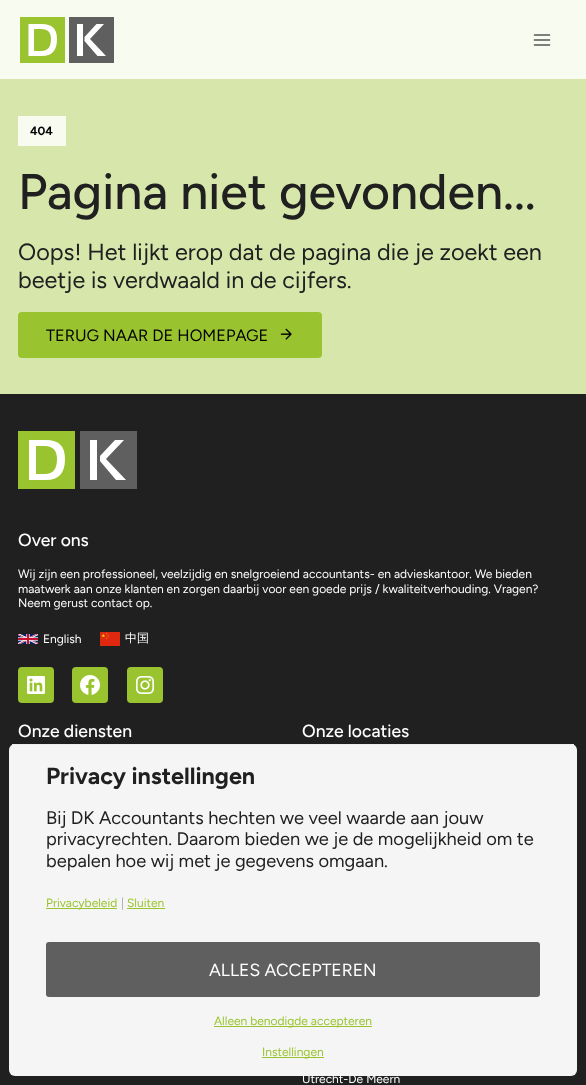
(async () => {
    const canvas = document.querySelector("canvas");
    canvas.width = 586;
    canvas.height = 1085;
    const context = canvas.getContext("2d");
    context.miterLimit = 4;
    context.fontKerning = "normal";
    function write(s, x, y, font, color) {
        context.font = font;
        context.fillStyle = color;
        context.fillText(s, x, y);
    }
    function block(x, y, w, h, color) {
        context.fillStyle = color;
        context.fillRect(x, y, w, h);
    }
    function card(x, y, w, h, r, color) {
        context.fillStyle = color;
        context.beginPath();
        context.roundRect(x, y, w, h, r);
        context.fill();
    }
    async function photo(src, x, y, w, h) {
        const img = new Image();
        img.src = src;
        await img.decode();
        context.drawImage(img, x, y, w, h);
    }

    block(0, 0, 586, 1085, "rgb(215, 231, 172)");
    block(0, 0, 586, 79, "rgb(248, 251, 240)");
    block(20, 17, 45, 46, "rgb(154, 196, 47)");
    block(69, 17, 45, 46, "rgb(95, 95, 95)");
    context.fillStyle = "rgb(255, 255, 255)";
    context.beginPath();
    context.moveTo(28.5, 56);
    context.lineTo(28.5, 24);
    context.lineTo(42, 24);
    context.bezierCurveTo(52, 24, 57, 29, 57, 39);
    context.bezierCurveTo(57, 50.5, 52, 56, 42, 56);
    context.closePath();
    context.moveTo(41, 51);
    context.bezierCurveTo(48, 51, 51, 47, 51, 39);
    context.bezierCurveTo(51, 32.5, 48, 29, 41, 29);
    context.lineTo(34, 29);
    context.lineTo(34, 51);
    context.closePath();
    context.fill();
    context.beginPath();
    context.moveTo(83, 24);
    context.lineTo(83, 56);
    context.lineTo(77, 56);
    context.lineTo(77, 24);
    context.closePath();
    context.moveTo(104, 24);
    context.lineTo(90, 39);
    context.lineTo(106, 56);
    context.lineTo(97.5, 56);
    context.lineTo(84.5, 41);
    context.lineTo(84.5, 37);
    context.lineTo(96.5, 24);
    context.closePath();
    context.fill();
    await photo("media/1.png", 533, 34, 18, 12);
    block(18, 116, 48, 30, "rgb(248, 251, 240)");
    write("404", 30, 135, "bold 12px Figtree", "rgb(0, 0, 0)");
    write("Pagina niet gevonden...", 18, 209, "500 50px Figtree", "rgb(32, 32, 32)");
    write("Oops! Het lijkt erop dat de pagina die je zoekt een", 18, 260, "23.4px Figtree", "rgb(32, 32, 32)");
    write("beetje is verdwaald in de cijfers.", 18, 288, "23.4px Figtree", "rgb(32, 32, 32)");
    card(18, 312, 304, 46, 4, "rgb(154, 196, 47)");
    write("TERUG NAAR DE HOMEPAGE", 46, 341, "16.4px Figtree", "rgb(0, 0, 0)");
    await photo("media/2.png", 280, 328, 12, 12);
    block(0, 394, 586, 691, "rgb(32, 32, 32)");
    block(18, 431, 57, 58, "rgb(154, 196, 47)");
    block(80, 431, 57, 58, "rgb(95, 95, 95)");
    context.fillStyle = "rgb(255, 255, 255)";
    context.beginPath();
    context.moveTo(29, 480);
    context.lineTo(29, 440);
    context.lineTo(46, 440);
    context.bezierCurveTo(59, 440, 65, 446, 65, 459);
    context.bezierCurveTo(65, 473, 59, 480, 46, 480);
    context.closePath();
    context.moveTo(45, 474);
    context.bezierCurveTo(53, 474, 57, 469, 57, 459);
    context.bezierCurveTo(57, 451, 53, 446, 45, 446);
    context.lineTo(36, 446);
    context.lineTo(36, 474);
    context.closePath();
    context.fill();
    context.beginPath();
    context.moveTo(97, 440);
    context.lineTo(97, 480);
    context.lineTo(90, 480);
    context.lineTo(90, 440);
    context.closePath();
    context.moveTo(124, 440);
    context.lineTo(106, 459);
    context.lineTo(126, 480);
    context.lineTo(116, 480);
    context.lineTo(100, 461);
    context.lineTo(100, 456);
    context.lineTo(115, 440);
    context.closePath();
    context.fill();
    write("Over ons", 18, 546, "500 17.5px Figtree", "rgb(255, 255, 255)");
    write("Wij zijn een professioneel, veelzijdig en snelgroeiend accountants- en advieskantoor. We bieden", 18, 578, "12px Figtree", "rgb(255, 255, 255)");
    write("maatwerk aan onze klanten en zorgen daarbij voor een goede prijs / kwaliteitverhouding. Vragen?", 18, 593, "12px Figtree", "rgb(255, 255, 255)");
    write("Neem gerust contact op.", 18, 607, "12px Figtree", "rgb(255, 255, 255)");
    await photo("media/3.png", 18, 634, 20, 10);
    write("English", 43, 643, "12px Figtree", "rgb(255, 255, 255)");
    await photo("media/4.png", 100, 632, 20, 14);
    write("中国", 125, 642, "500 12px WenQuanYi Zen Hei", "rgb(255, 255, 255)");
    card(18, 667, 36, 36, 4, "rgb(154, 196, 47)");
    await photo("media/5.png", 27, 676, 18, 18);
    card(72, 667, 36, 36, 4, "rgb(154, 196, 47)");
    await photo("media/6.png", 80, 675, 20, 20);
    card(127, 667, 36, 36, 4, "rgb(154, 196, 47)");
    await photo("media/7.png", 136, 676, 18, 18);
    write("Onze diensten", 18, 737, "500 17.5px Figtree", "rgb(255, 255, 255)");
    write("Onze locaties", 302, 737, "500 17.5px Figtree", "rgb(255, 255, 255)");
    write("Utrecht-De Meern", 302, 1083, "12px Figtree", "rgb(255, 255, 255)");
    card(9, 744, 568, 332, 6, "rgb(245, 245, 245)");
    block(12, 744, 562, 1, "rgb(238, 238, 238)");
    write("Privacy instellingen", 46, 784, "bold 23.4px Figtree", "rgb(32, 32, 32)");
    write("Bij DK Accountants hechten we veel waarde aan jouw", 46, 824, "18.25px Figtree", "rgb(32, 32, 32)");
    write("privacyrechten. Daarom bieden we je de mogelijkheid om te", 46, 845, "18.25px Figtree", "rgb(32, 32, 32)");
    write("bepalen hoe wij met je gegevens omgaan.", 46, 867, "18.25px Figtree", "rgb(32, 32, 32)");
    block(46, 908, 71, 1, "rgb(154, 196, 47)");
    write("Privacybeleid", 46, 907, "12px Figtree", "rgb(154, 196, 47)");
    write("|", 121, 907, "12px Figtree", "rgb(170, 170, 170)");
    write("Sluiten", 127, 907, "12px Figtree", "rgb(154, 196, 47)");
    block(127, 908, 38, 1, "rgb(154, 196, 47)");
    card(46, 942, 494, 55, 3, "rgb(95, 95, 95)");
    write("ALLES ACCEPTEREN", 209, 976, "17.5px Figtree", "rgb(255, 255, 255)");
    block(214, 1026, 158, 1, "rgb(154, 196, 47)");
    write("Alleen benodigde accepteren", 214, 1025, "12px Figtree", "rgb(154, 196, 47)");
    block(262, 1057, 62, 1, "rgb(154, 196, 47)");
    write("Instellingen", 262, 1056, "12px Figtree", "rgb(154, 196, 47)");
})();
